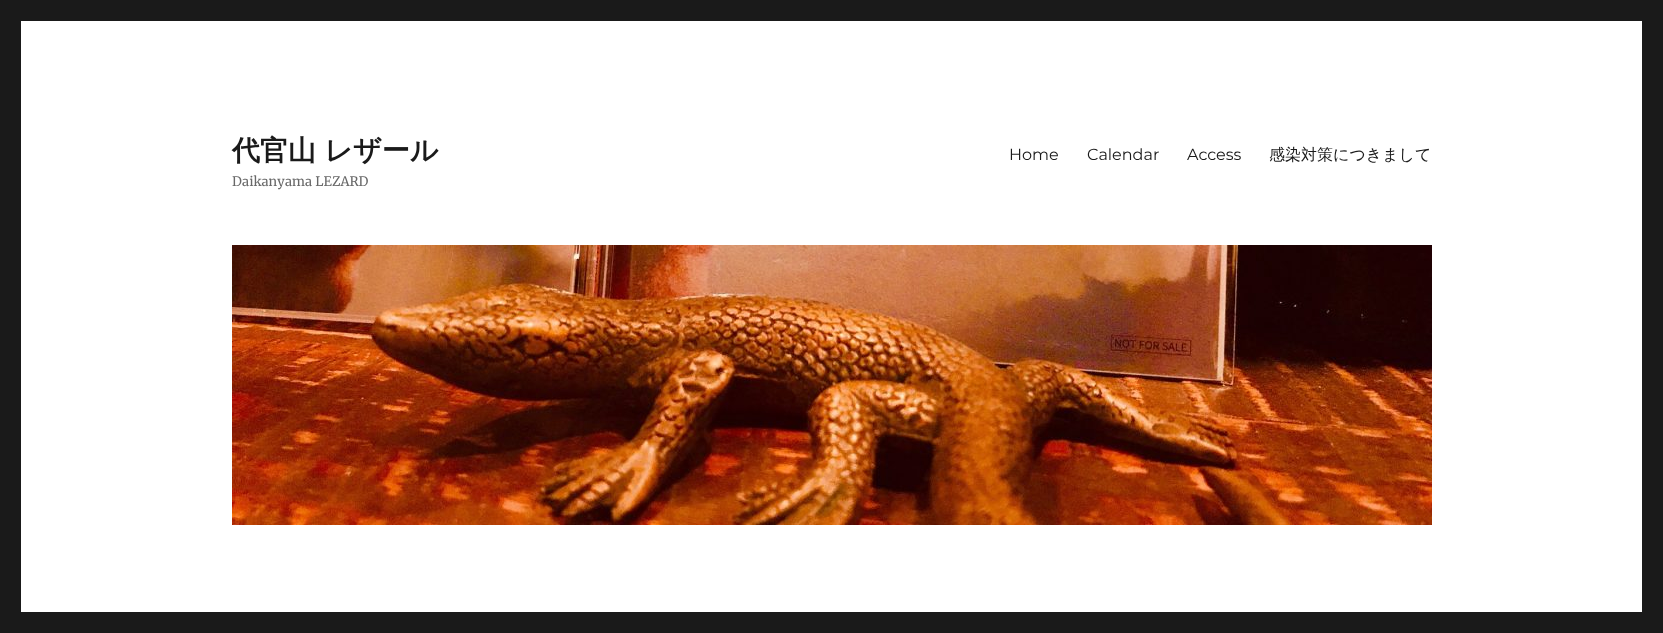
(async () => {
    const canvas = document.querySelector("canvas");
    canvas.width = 1663;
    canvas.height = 633;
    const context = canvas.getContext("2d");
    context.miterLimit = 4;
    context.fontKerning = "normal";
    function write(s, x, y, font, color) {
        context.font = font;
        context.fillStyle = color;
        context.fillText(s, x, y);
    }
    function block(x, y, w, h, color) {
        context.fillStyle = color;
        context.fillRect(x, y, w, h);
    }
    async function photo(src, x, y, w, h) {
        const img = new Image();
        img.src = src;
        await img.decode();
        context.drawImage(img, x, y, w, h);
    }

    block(0, 0, 1663, 633, "rgb(26, 26, 26)");
    block(21, 21, 1621, 591, "rgb(255, 255, 255)");
    write("代官山 レザール", 232, 160, "bold 28px WenQuanYi Zen Hei", "rgb(26, 26, 26)");
    write("Daikanyama LEZARD", 232, 186, "13px Merriweather", "rgb(104, 104, 104)");
    write("Home", 1009, 160, "100 16px Montserrat", "rgb(26, 26, 26)");
    write("Calendar", 1087, 160, "100 16px Montserrat", "rgb(26, 26, 26)");
    write("Access", 1187, 160, "100 16px Montserrat", "rgb(26, 26, 26)");
    write("感染対策につきまして", 1269, 160, "500 16px WenQuanYi Zen Hei", "rgb(26, 26, 26)");
    await photo("media/1.png", 232, 245, 1200, 280);
})();
